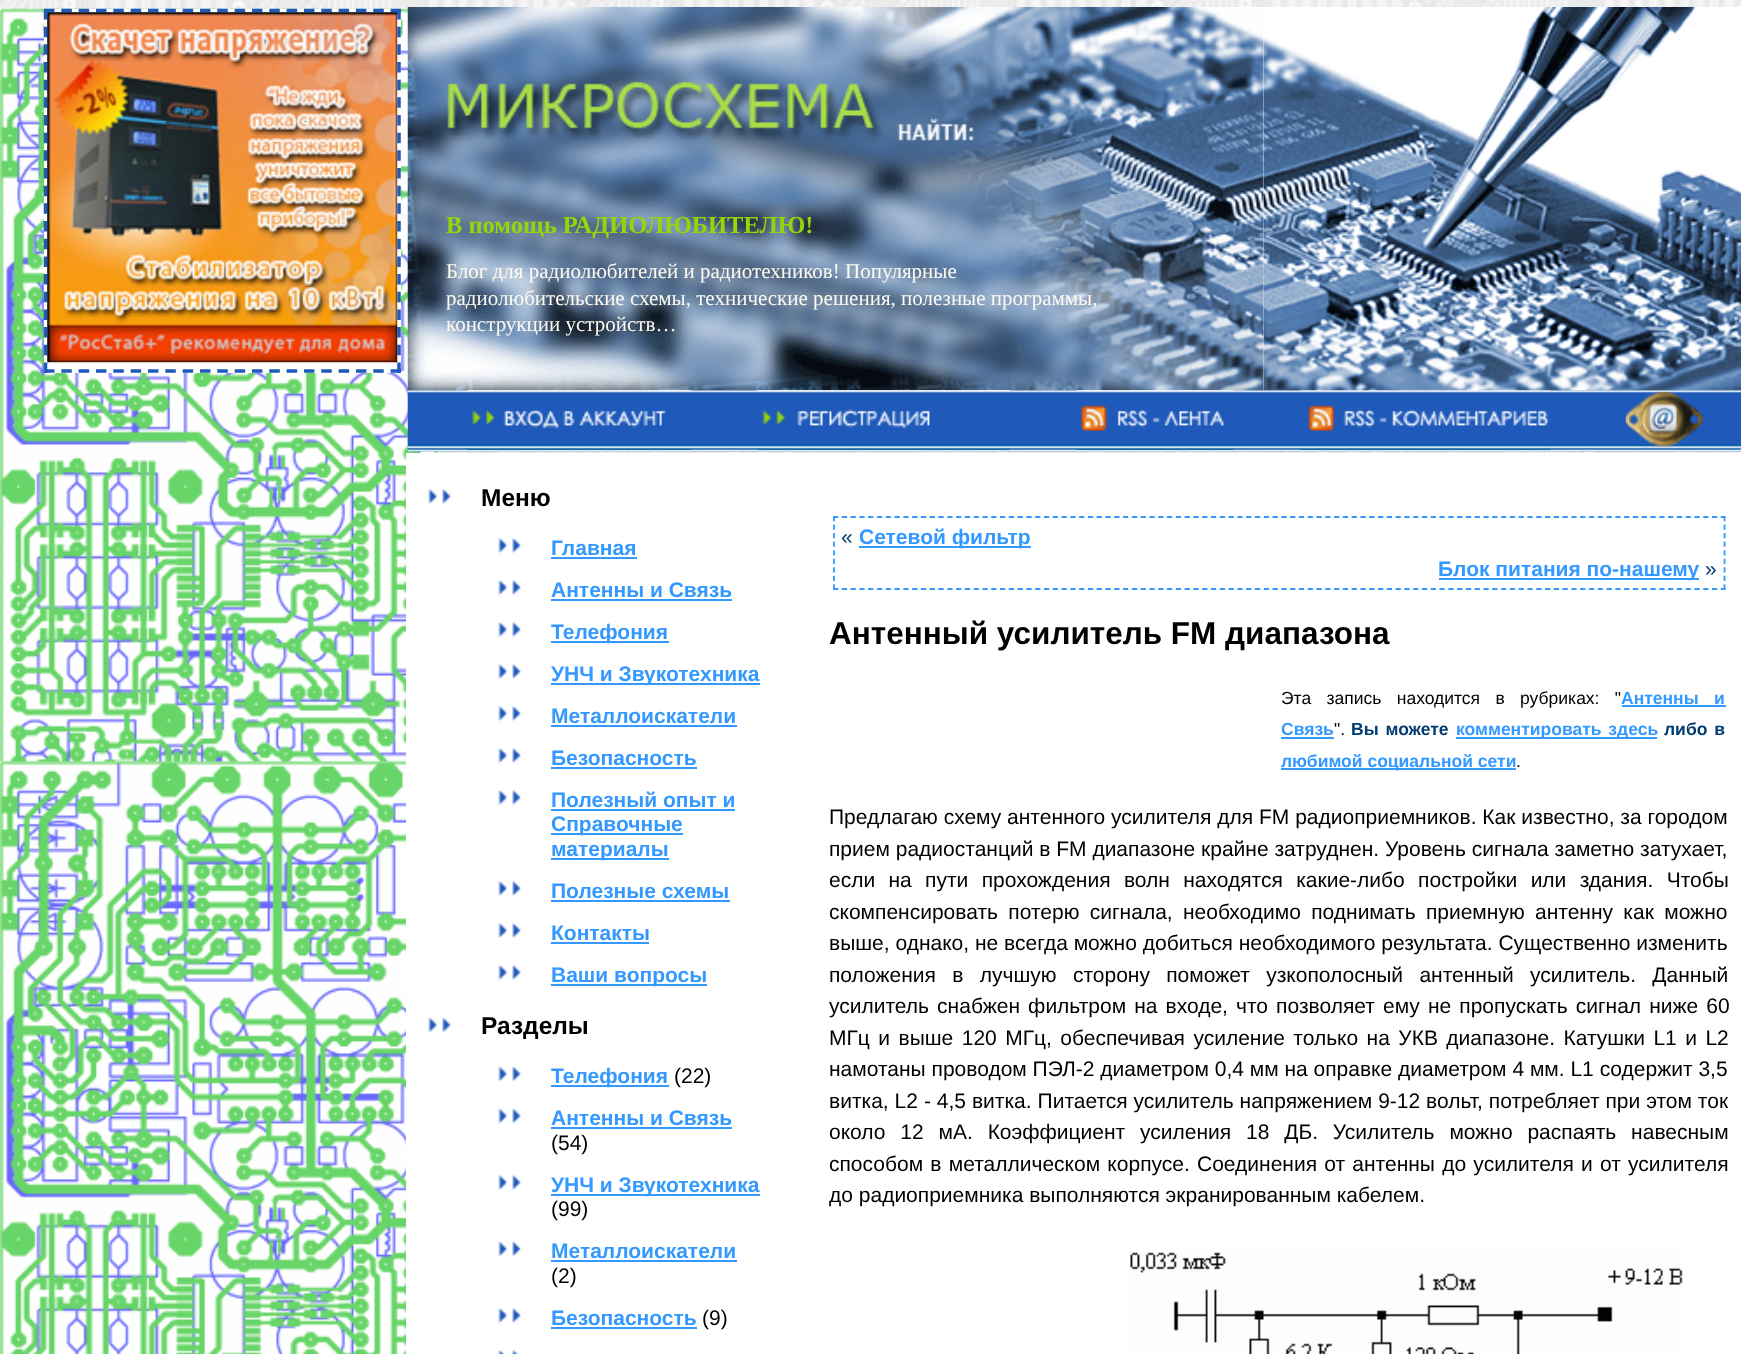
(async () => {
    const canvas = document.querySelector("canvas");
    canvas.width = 1741;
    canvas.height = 1354;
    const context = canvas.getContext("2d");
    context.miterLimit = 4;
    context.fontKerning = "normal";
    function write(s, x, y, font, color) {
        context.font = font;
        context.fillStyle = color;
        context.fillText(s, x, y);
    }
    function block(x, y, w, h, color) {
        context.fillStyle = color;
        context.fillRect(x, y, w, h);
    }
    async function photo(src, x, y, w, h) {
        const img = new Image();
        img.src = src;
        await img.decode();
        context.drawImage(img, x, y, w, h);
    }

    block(0, 0, 1741, 1354, "rgb(255, 255, 255)");
    await photo("media/1.png", 0, 0, 1741, 453);
    await photo("media/2.png", 0, 8, 438, 1346);
    block(44, 9, 357, 364, "rgb(255, 255, 255)");
    context.beginPath();
    context.moveTo(44, 10.5);
    context.lineTo(401, 10.5);
    context.strokeStyle = "rgb(31, 90, 186)";
    context.lineWidth = 3.5;
    context.setLineDash([10.5, 6.83]);
    context.stroke();
    context.beginPath();
    context.moveTo(399, 9);
    context.lineTo(399, 373);
    context.setLineDash([10.5, 7.17]);
    context.stroke();
    context.beginPath();
    context.moveTo(44, 371);
    context.lineTo(401, 371);
    context.setLineDash([10.5, 6.83]);
    context.stroke();
    context.beginPath();
    context.moveTo(45.5, 9);
    context.lineTo(45.5, 373);
    context.setLineDash([10.5, 7.17]);
    context.stroke();
    await photo("media/3.png", 47, 12, 351, 351);
    block(1263, 7, 1, 187, "rgb(255, 255, 255)");
    await photo("media/4.png", 407, 7, 857, 189);
    await photo("media/5.png", 897, 118, 77, 23);
    await photo("media/8.png", 407, 390, 1334, 62);
    await photo("media/7.png", 407, 194, 857, 197);
    await photo("media/12.png", 1300, 390, 251, 60);
    await photo("media/6.png", 1263, 7, 478, 384);
    write("В помощь РАДИОЛЮБИТЕЛЮ!", 446, 233, "bold 24.5px Liberation Serif", "rgb(149, 214, 9)");
    write("Блог для радиолюбителей и радиотехников! Популярные", 446, 278, "21px Liberation Serif", "rgb(255, 250, 240)");
    write("радиолюбительские схемы, технические решения, полезные программы,", 446, 305, "21px Liberation Serif", "rgb(255, 250, 240)");
    write("конструкции устройств…", 446, 331, "21px Liberation Serif", "rgb(255, 250, 240)");
    await photo("media/9.png", 467, 390, 225, 60);
    await photo("media/10.png", 757, 390, 253, 60);
    await photo("media/11.png", 1076, 390, 158, 60);
    await photo("media/13.png", 1625, 392, 78, 55);
    block(406, 453, 32, 901, "rgb(255, 255, 255)");
    await photo("media/14.png", 428, 488, 24, 17);
    write("Меню", 481, 506, "bold 24.5px Liberation Sans", "rgb(0, 0, 0)");
    await photo("media/14.png", 498, 537, 24, 17);
    write("Главная", 551, 555, "bold 21px Liberation Sans", "rgb(51, 153, 255)");
    block(551, 557, 86, 2, "rgb(51, 153, 255)");
    await photo("media/14.png", 498, 579, 24, 17);
    write("Антенны и Связь", 551, 597, "bold 21px Liberation Sans", "rgb(51, 153, 255)");
    block(551, 599, 181, 2, "rgb(51, 153, 255)");
    await photo("media/14.png", 498, 621, 24, 17);
    block(551, 641, 118, 2, "rgb(51, 153, 255)");
    write("Телефония", 551, 639, "bold 21px Liberation Sans", "rgb(51, 153, 255)");
    await photo("media/14.png", 498, 663, 24, 17);
    block(551, 683, 209, 2, "rgb(51, 153, 255)");
    write("УНЧ и Звукотехника", 551, 681, "bold 21px Liberation Sans", "rgb(51, 153, 255)");
    await photo("media/14.png", 498, 705, 24, 17);
    write("Металлоискатели", 551, 723, "bold 21px Liberation Sans", "rgb(51, 153, 255)");
    block(551, 725, 186, 2, "rgb(51, 153, 255)");
    await photo("media/14.png", 498, 747, 24, 17);
    write("Безопасность", 551, 765, "bold 21px Liberation Sans", "rgb(51, 153, 255)");
    block(551, 767, 146, 2, "rgb(51, 153, 255)");
    await photo("media/14.png", 498, 789, 24, 17);
    write("Полезный опыт и", 551, 807, "bold 21px Liberation Sans", "rgb(51, 153, 255)");
    block(551, 809, 184, 2, "rgb(51, 153, 255)");
    block(551, 833, 132, 2, "rgb(51, 153, 255)");
    write("Справочные", 551, 831, "bold 21px Liberation Sans", "rgb(51, 153, 255)");
    block(551, 858, 118, 2, "rgb(51, 153, 255)");
    write("материалы", 551, 856, "bold 21px Liberation Sans", "rgb(51, 153, 255)");
    await photo("media/14.png", 498, 880, 24, 17);
    write("Полезные схемы", 551, 898, "bold 21px Liberation Sans", "rgb(51, 153, 255)");
    block(551, 900, 179, 2, "rgb(51, 153, 255)");
    await photo("media/14.png", 498, 922, 24, 17);
    write("Контакты", 551, 940, "bold 21px Liberation Sans", "rgb(51, 153, 255)");
    block(551, 942, 98, 2, "rgb(51, 153, 255)");
    await photo("media/14.png", 498, 964, 24, 17);
    block(551, 984, 156, 2, "rgb(51, 153, 255)");
    write("Ваши вопросы", 551, 982, "bold 21px Liberation Sans", "rgb(51, 153, 255)");
    await photo("media/15.png", 428, 1017, 24, 16);
    write("Разделы", 481, 1034, "bold 24.5px Liberation Sans", "rgb(0, 0, 0)");
    await photo("media/15.png", 498, 1066, 24, 16);
    block(551, 1085, 118, 2, "rgb(51, 153, 255)");
    write("Телефония", 551, 1083, "bold 21px Liberation Sans", "rgb(51, 153, 255)");
    write("(22)", 674, 1083, "21px Liberation Sans", "rgb(0, 0, 0)");
    await photo("media/15.png", 498, 1108, 24, 16);
    write("Антенны и Связь", 551, 1125, "bold 21px Liberation Sans", "rgb(51, 153, 255)");
    block(551, 1127, 181, 2, "rgb(51, 153, 255)");
    write("(54)", 551, 1150, "21px Liberation Sans", "rgb(0, 0, 0)");
    await photo("media/14.png", 498, 1174, 24, 17);
    block(551, 1194, 209, 2, "rgb(51, 153, 255)");
    write("УНЧ и Звукотехника", 551, 1192, "bold 21px Liberation Sans", "rgb(51, 153, 255)");
    write("(99)", 551, 1216, "21px Liberation Sans", "rgb(0, 0, 0)");
    await photo("media/15.png", 498, 1241, 24, 16);
    write("Металлоискатели", 551, 1258, "bold 21px Liberation Sans", "rgb(51, 153, 255)");
    block(551, 1260, 186, 2, "rgb(51, 153, 255)");
    write("(2)", 551, 1283, "21px Liberation Sans", "rgb(0, 0, 0)");
    await photo("media/14.png", 498, 1307, 24, 17);
    write("Безопасность", 551, 1325, "bold 21px Liberation Sans", "rgb(51, 153, 255)");
    block(551, 1327, 146, 2, "rgb(51, 153, 255)");
    write("(9)", 702, 1325, "21px Liberation Sans", "rgb(0, 0, 0)");
    await photo("media/16.png", 498, 1349, 21, 5);
    context.beginPath();
    context.moveTo(833, 517);
    context.lineTo(1725.5, 517);
    context.strokeStyle = "rgb(51, 153, 255)";
    context.lineWidth = 1.8;
    context.setLineDash([5.25, 3.54]);
    context.stroke();
    context.beginPath();
    context.moveTo(1724.5, 516);
    context.lineTo(1724.5, 590);
    context.setLineDash([5.25, 3.29]);
    context.stroke();
    context.beginPath();
    context.moveTo(833, 589);
    context.lineTo(1725.5, 589);
    context.setLineDash([5.25, 3.54]);
    context.stroke();
    context.beginPath();
    context.moveTo(834, 516);
    context.lineTo(834, 590);
    context.setLineDash([5.25, 3.29]);
    context.stroke();
    write("«", 841, 544, "21px Liberation Sans", "rgb(0, 60, 111)");
    block(859, 546, 172, 2, "rgb(51, 153, 255)");
    write("Сетевой фильтр", 859, 544, "bold 21px Liberation Sans", "rgb(51, 153, 255)");
    block(1439, 578, 260, 2, "rgb(51, 153, 255)");
    write("Блок питания по-нашему", 1438, 576, "bold 21px Liberation Sans", "rgb(51, 153, 255)");
    write("»", 1705, 576, "21px Liberation Sans", "rgb(0, 60, 111)");
    write("Антенный усилитель FM диапазона", 829, 644, "bold 31.5px Liberation Sans", "rgb(0, 0, 0)");
    context.wordSpacing = "10.5px";
    write("Эта запись находится в рубриках: \"", 1281, 704, "17.5px Liberation Sans", "rgb(0, 0, 0)");
    write("Антенны и", 1621, 704, "bold 17.5px Liberation Sans", "rgb(51, 153, 255)");
    block(1622, 705, 104, 2, "rgb(51, 153, 255)");
    context.wordSpacing = "0px";
    write("Связь", 1281, 735, "bold 17.5px Liberation Sans", "rgb(51, 153, 255)");
    block(1281, 737, 53, 2, "rgb(51, 153, 255)");
    write("\".", 1334, 735, "17.5px Liberation Sans", "rgb(0, 0, 0)");
    context.wordSpacing = "2px";
    write("Вы можете", 1351, 735, "bold 17.5px Liberation Sans", "rgb(0, 60, 111)");
    block(1456, 737, 201, 2, "rgb(51, 153, 255)");
    write("комментировать здесь", 1456, 735, "bold 17.5px Liberation Sans", "rgb(51, 153, 255)");
    write("либо в", 1664, 735, "bold 17.5px Liberation Sans", "rgb(0, 60, 111)");
    block(1281, 768, 235, 2, "rgb(51, 153, 255)");
    context.wordSpacing = "0px";
    write("любимой социальной сети", 1281, 767, "bold 17.5px Liberation Sans", "rgb(51, 153, 255)");
    write(".", 1516, 767, "17.5px Liberation Sans", "rgb(0, 0, 0)");
    write("Предлагаю схему антенного усилителя для FM радиоприемников. Как известно, за городом", 829, 824, "21px Liberation Sans", "rgb(0, 0, 0)");
    write("прием радиостанций в FM диапазоне крайне затруднен. Уровень сигнала заметно затухает,", 829, 856, "21px Liberation Sans", "rgb(0, 0, 0)");
    context.wordSpacing = "7.5px";
    write("если на пути прохождения волн находятся какие-либо постройки или здания. Чтобы", 829, 887, "21px Liberation Sans", "rgb(0, 0, 0)");
    context.wordSpacing = "4.5px";
    write("скомпенсировать потерю сигнала, необходимо поднимать приемную антенну как можно", 829, 919, "21px Liberation Sans", "rgb(0, 0, 0)");
    context.wordSpacing = "0px";
    write("выше, однако, не всегда можно добиться необходимого результата. Существенно изменить", 829, 950, "21px Liberation Sans", "rgb(0, 0, 0)");
    context.wordSpacing = "10.5px";
    write("положения в лучшую сторону поможет узкополосный антенный усилитель. Данный", 829, 982, "21px Liberation Sans", "rgb(0, 0, 0)");
    context.wordSpacing = "2.25px";
    write("усилитель снабжен фильтром на входе, что позволяет ему не пропускать сигнал ниже 60", 829, 1013, "21px Liberation Sans", "rgb(0, 0, 0)");
    context.wordSpacing = "2.6px";
    write("МГц и выше 120 МГц, обеспечивая усиление только на УКВ диапазоне. Катушки L1 и L2", 829, 1045, "21px Liberation Sans", "rgb(0, 0, 0)");
    context.wordSpacing = "0px";
    write("намотаны проводом ПЭЛ-2 диаметром 0,4 мм на оправке диаметром 4 мм. L1 содержит 3,5", 829, 1076, "21px Liberation Sans", "rgb(0, 0, 0)");
    context.wordSpacing = "0.1px";
    write("витка, L2 - 4,5 витка. Питается усилитель напряжением 9-12 вольт, потребляет при этом ток", 829, 1108, "21px Liberation Sans", "rgb(0, 0, 0)");
    context.wordSpacing = "9px";
    write("около 12 мА. Коэффициент усиления 18 ДБ. Усилитель можно распаять навесным", 829, 1139, "21px Liberation Sans", "rgb(0, 0, 0)");
    context.wordSpacing = "1.4px";
    write("способом в металлическом корпусе. Соединения от антенны до усилителя и от усилителя", 829, 1171, "21px Liberation Sans", "rgb(0, 0, 0)");
    context.wordSpacing = "0px";
    write("до радиоприемника выполняются экранированным кабелем.", 829, 1202, "21px Liberation Sans", "rgb(0, 0, 0)");
    await photo("media/17.png", 1130, 1252, 553, 102);
})();
